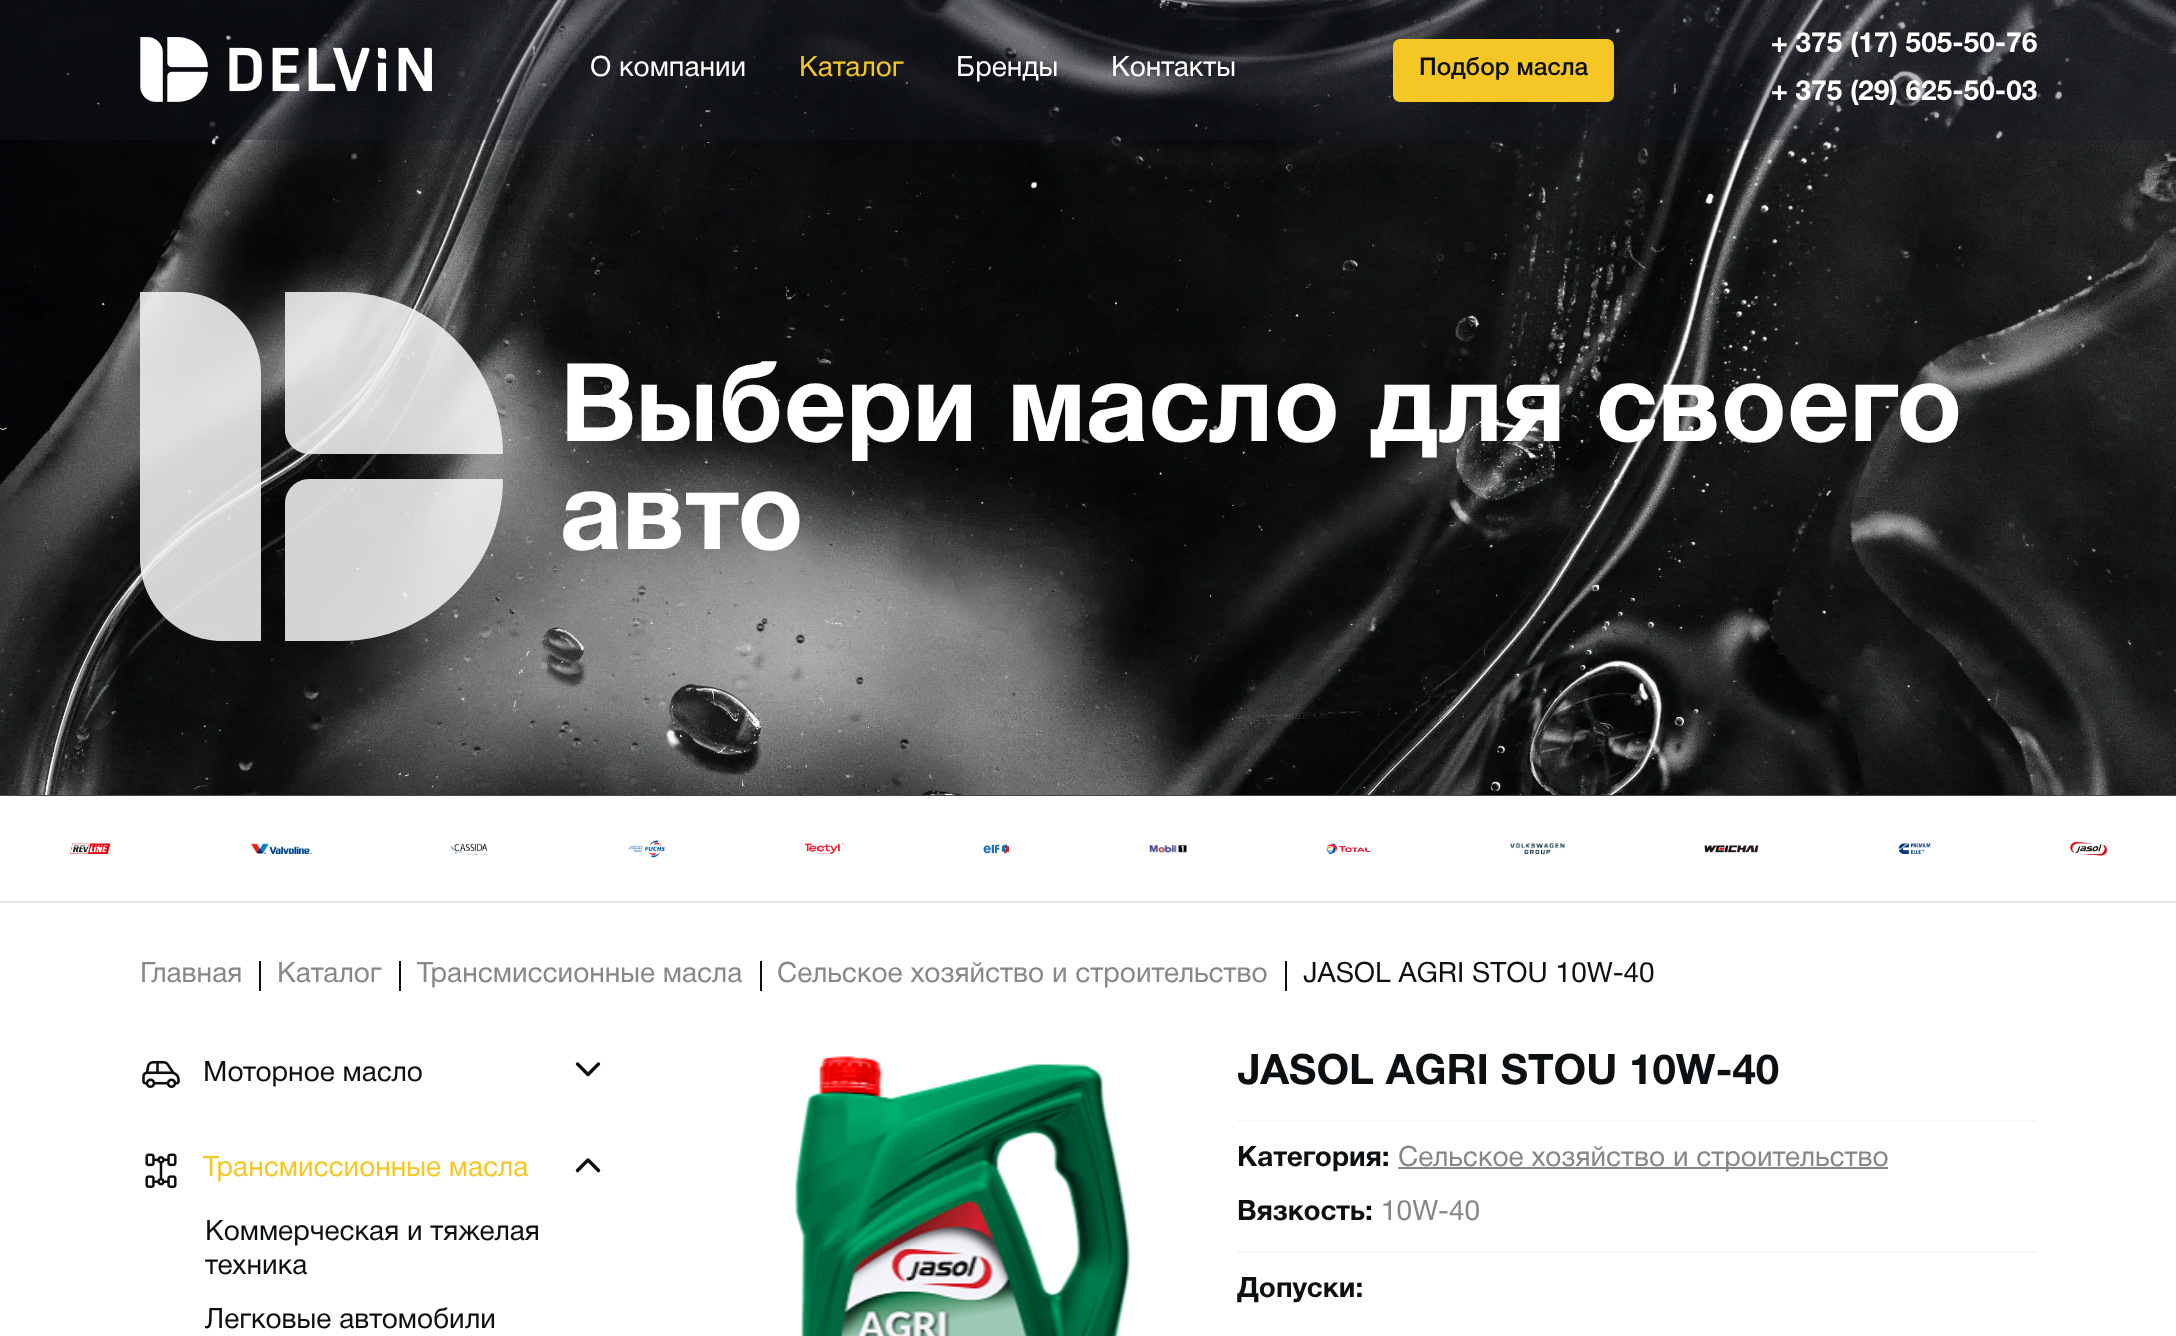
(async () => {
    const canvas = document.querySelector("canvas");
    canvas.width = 2176;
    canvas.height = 1336;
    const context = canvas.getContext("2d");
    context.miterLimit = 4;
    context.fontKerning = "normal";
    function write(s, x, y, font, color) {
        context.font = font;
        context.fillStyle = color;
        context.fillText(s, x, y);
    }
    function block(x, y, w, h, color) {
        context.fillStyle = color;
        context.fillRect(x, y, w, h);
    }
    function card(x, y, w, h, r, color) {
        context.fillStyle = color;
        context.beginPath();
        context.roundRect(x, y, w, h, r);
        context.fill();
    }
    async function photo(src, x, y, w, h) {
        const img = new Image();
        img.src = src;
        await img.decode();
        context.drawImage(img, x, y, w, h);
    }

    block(0, 0, 2176, 1336, "rgb(255, 255, 255)");
    await photo("media/2.png", 0, 0, 2176, 795);
    block(0, 0, 2176, 140, "rgba(22, 28, 35, 0.3)");
    await photo("media/1.png", 140, 37, 292, 65);
    write("О компании", 590, 76, "28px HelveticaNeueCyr", "rgb(255, 255, 255)");
    write("Каталог", 799, 76, "28px HelveticaNeueCyr", "rgb(245, 199, 38)");
    write("Бренды", 956, 76, "28px HelveticaNeueCyr", "rgb(255, 255, 255)");
    write("Контакты", 1111, 76, "28px HelveticaNeueCyr", "rgb(255, 255, 255)");
    card(1393, 39, 221, 63, 7, "rgb(245, 199, 38)");
    write("Подбор масла", 1419, 75, "500 24.5px HelveticaNeueCyr", "rgb(13, 16, 18)");
    write("+ 375 (17) 505-50-76", 1771, 52, "bold 28px HelveticaNeueCyr", "rgb(255, 255, 255)");
    write("+ 375 (29) 625-50-03", 1771, 100, "bold 28px HelveticaNeueCyr", "rgb(255, 255, 255)");
    block(0, 795, 2176, 1, "rgb(64, 70, 78)");
    context.fillStyle = "rgba(242, 242, 242, 0.87)";
    context.beginPath();
    context.moveTo(285, 292);
    context.lineTo(341, 292);
    context.bezierCurveTo(430, 292, 503, 365, 503, 454);
    context.lineTo(309, 454);
    context.bezierCurveTo(296, 454, 285, 443, 285, 430);
    context.closePath();
    context.fill();
    context.beginPath();
    context.moveTo(285, 503);
    context.bezierCurveTo(285, 490, 296, 479, 309, 479);
    context.lineTo(503, 479);
    context.bezierCurveTo(503, 568, 430, 641, 341, 641);
    context.lineTo(285, 641);
    context.closePath();
    context.fill();
    context.beginPath();
    context.moveTo(140, 292);
    context.lineTo(179, 292);
    context.bezierCurveTo(224, 292, 261, 329, 261, 374);
    context.lineTo(261, 641);
    context.lineTo(222, 641);
    context.bezierCurveTo(177, 641, 140, 604, 140, 558);
    context.closePath();
    context.fill();
    write("Выбери масло для своего", 560, 441, "bold 108.8px HelveticaNeueCyr", "rgb(255, 255, 255)");
    write("авто", 560, 549, "bold 108.8px HelveticaNeueCyr", "rgb(255, 255, 255)");
    block(0, 901, 2176, 2, "rgb(230, 230, 230)");
    await photo("media/3.png", 70, 843, 41, 11);
    await photo("media/4.png", 251, 843, 61, 11);
    await photo("media/5.png", 451, 843, 38, 13);
    await photo("media/6.png", 628, 840, 37, 18);
    await photo("media/7.png", 805, 843, 39, 11);
    await photo("media/8.png", 983, 844, 26, 10);
    await photo("media/9.png", 1149, 845, 38, 8);
    await photo("media/10.png", 1326, 843, 45, 11);
    await photo("media/11.png", 1510, 843, 55, 11);
    await photo("media/12.png", 1704, 845, 55, 8);
    await photo("media/13.png", 1898, 843, 33, 11);
    await photo("media/14.png", 2070, 841, 37, 15);
    write("Главная", 140, 982, "28px HelveticaNeueCyr", "rgb(134, 135, 136)");
    block(259, 961, 2, 30, "rgb(13, 16, 18)");
    write("Каталог", 277, 982, "28px HelveticaNeueCyr", "rgb(134, 135, 136)");
    block(399, 961, 2, 30, "rgb(13, 16, 18)");
    write("Трансмиссионные масла", 417, 982, "28px HelveticaNeueCyr", "rgb(134, 135, 136)");
    block(760, 961, 2, 30, "rgb(13, 16, 18)");
    write("Сельское хозяйство и строительство", 777, 982, "28px HelveticaNeueCyr", "rgb(134, 135, 136)");
    block(1285, 961, 2, 30, "rgb(13, 16, 18)");
    write("JASOL AGRI STOU 10W-40", 1303, 982, "28px HelveticaNeueCyr", "rgb(13, 16, 18)");
    await photo("media/15.png", 142, 1060, 38, 28);
    write("Моторное масло", 203, 1081, "28px HelveticaNeueCyr", "rgb(13, 16, 18)");
    context.beginPath();
    context.moveTo(577.5, 1064);
    context.lineTo(588, 1074.5);
    context.lineTo(598.5, 1064);
    context.strokeStyle = "rgb(13, 16, 18)";
    context.lineWidth = 3.5;
    context.lineCap = "round";
    context.lineJoin = "round";
    context.stroke();
    await photo("media/16.png", 145, 1153, 32, 35);
    write("Трансмиссионные масла", 203, 1176, "28px HelveticaNeueCyr", "rgb(245, 199, 38)");
    context.beginPath();
    context.moveTo(598.5, 1170.5);
    context.lineTo(588, 1160);
    context.lineTo(577.5, 1170.5);
    context.stroke();
    write("Коммерческая и тяжелая", 205, 1240, "28px HelveticaNeueCyr", "rgb(13, 16, 18)");
    write("техника", 205, 1274, "28px HelveticaNeueCyr", "rgb(13, 16, 18)");
    write("Легковые автомобили", 205, 1328, "28px HelveticaNeueCyr", "rgb(13, 16, 18)");
    await photo("media/17.png", 795, 1056, 336, 280);
    write("JASOL AGRI STOU 10W-40", 1237, 1084, "bold 42px HelveticaNeueCyr", "rgb(13, 16, 18)");
    block(1237, 1120, 800, 2, "rgb(248, 248, 248)");
    write("Категория:", 1237, 1166, "bold 28px HelveticaNeueCyr", "rgb(13, 16, 18)");
    block(1398, 1167, 490, 2, "rgb(134, 135, 136)");
    write("Сельское хозяйство и строительство", 1398, 1166, "28px HelveticaNeueCyr", "rgb(134, 135, 136)");
    write("Вязкость:", 1237, 1220, "bold 28px HelveticaNeueCyr", "rgb(13, 16, 18)");
    write("10W-40", 1381, 1220, "28px HelveticaNeueCyr", "rgb(134, 135, 136)");
    block(1237, 1251, 800, 2, "rgb(248, 248, 248)");
    write("Допуски:", 1237, 1297, "bold 28px HelveticaNeueCyr", "rgb(13, 16, 18)");
})();
